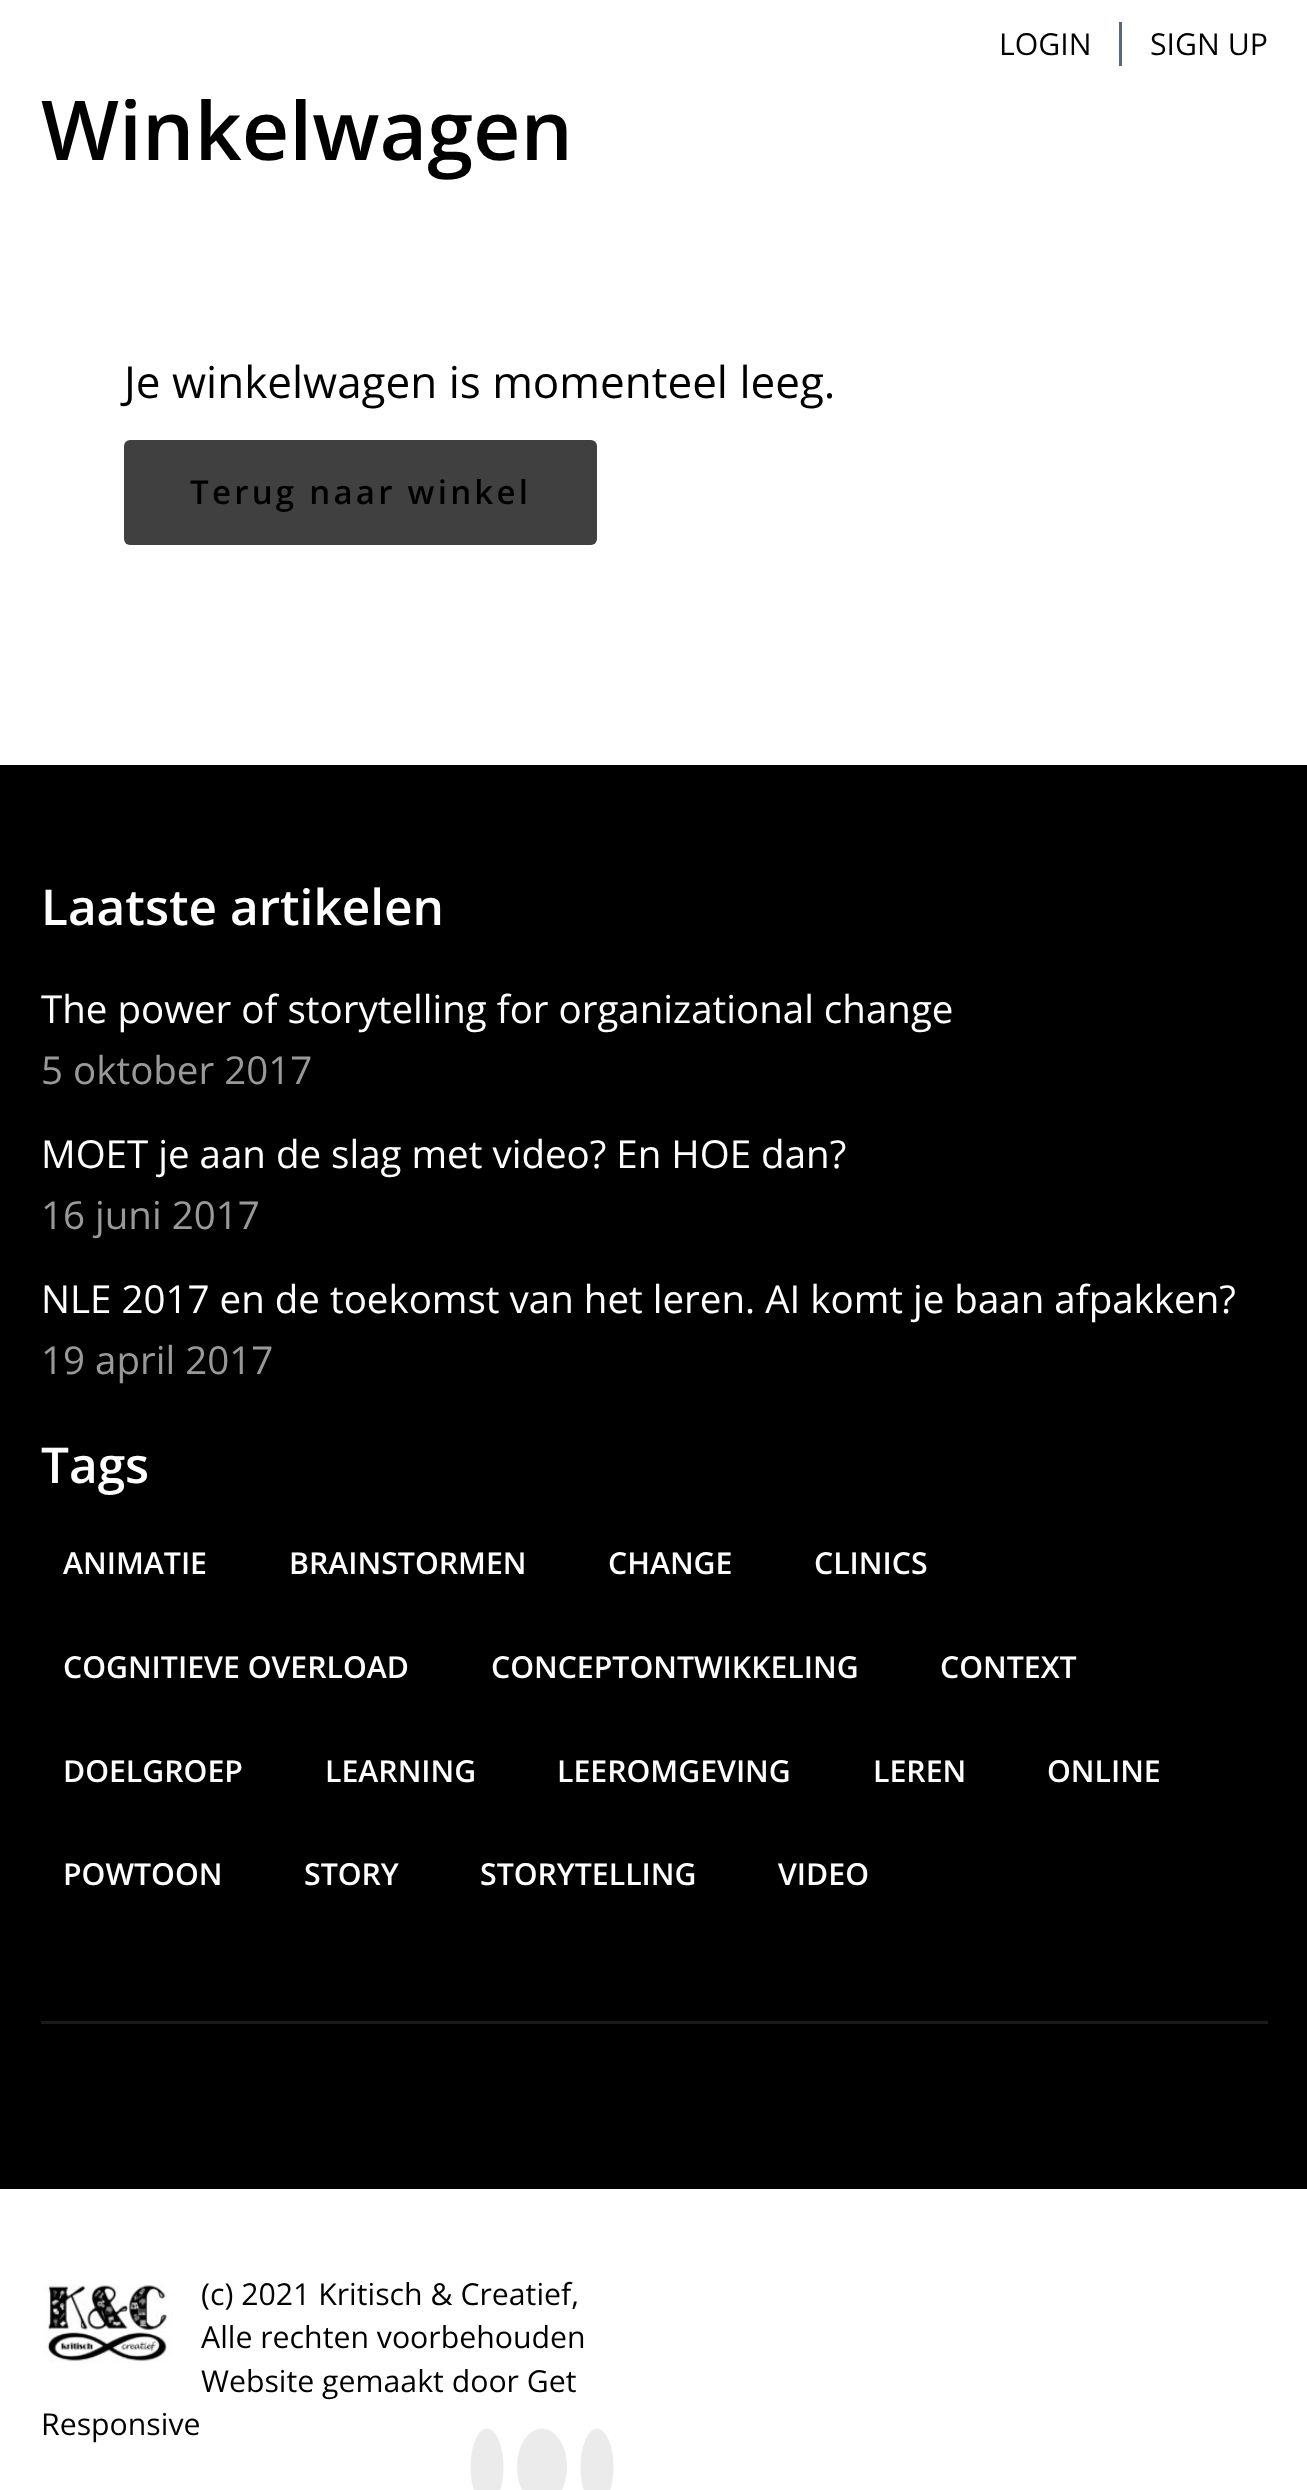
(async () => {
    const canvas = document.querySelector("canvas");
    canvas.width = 1307;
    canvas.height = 2490;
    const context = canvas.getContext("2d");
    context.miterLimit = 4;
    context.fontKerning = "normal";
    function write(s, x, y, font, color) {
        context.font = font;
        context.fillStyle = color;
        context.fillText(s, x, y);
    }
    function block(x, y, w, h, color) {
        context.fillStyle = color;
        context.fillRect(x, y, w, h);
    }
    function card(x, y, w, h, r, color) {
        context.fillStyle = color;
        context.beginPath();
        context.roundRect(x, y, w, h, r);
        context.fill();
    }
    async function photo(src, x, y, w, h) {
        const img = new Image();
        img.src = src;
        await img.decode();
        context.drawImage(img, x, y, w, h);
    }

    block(0, 0, 1307, 2490, "rgb(255, 255, 255)");
    write("Winkelwagen", 41, 160, "600 82.5px Open Sans", "rgb(0, 0, 0)");
    block(127, 97, 179, 2, "rgb(255, 255, 255)");
    write("LOGIN", 999, 55, "30.25px Open Sans", "rgb(0, 0, 0)");
    block(1119, 22, 3, 44, "rgb(87, 105, 114)");
    write("SIGN UP", 1150, 55, "30.25px Open Sans", "rgb(0, 0, 0)");
    write("Je winkelwagen is momenteel leeg.", 124, 398, "44px Open Sans", "rgb(0, 0, 0)");
    card(124, 440, 473, 105, 6, "rgb(64, 64, 64)");
    context.letterSpacing = "3.25px";
    write("Terug naar winkel", 190, 504, "600 33px Open Sans", "rgb(0, 0, 0)");
    block(0, 765, 1307, 1424, "rgb(0, 0, 0)");
    context.letterSpacing = "0px";
    write("Laatste artikelen", 41, 925, "600 49.5px Open Sans", "rgb(255, 255, 255)");
    write("The power of storytelling for organizational change", 41, 1023, "38.5px Open Sans", "rgb(255, 255, 255)");
    write("5 oktober 2017", 41, 1084, "38.5px Open Sans", "rgb(153, 153, 153)");
    write("MOET je aan de slag met video? En HOE dan?", 41, 1168, "38.5px Open Sans", "rgb(255, 255, 255)");
    write("16 juni 2017", 41, 1229, "38.5px Open Sans", "rgb(153, 153, 153)");
    write("NLE 2017 en de toekomst van het leren. AI komt je baan afpakken?", 41, 1313, "38.5px Open Sans", "rgb(255, 255, 255)");
    write("19 april 2017", 41, 1374, "38.5px Open Sans", "rgb(153, 153, 153)");
    write("Tags", 41, 1483, "600 49.5px Open Sans", "rgb(255, 255, 255)");
    write("ANIMATIE", 63, 1574, "600 30.25px Open Sans", "rgb(255, 255, 255)");
    write("BRAINSTORMEN", 289, 1574, "600 30.25px Open Sans", "rgb(255, 255, 255)");
    write("CHANGE", 608, 1574, "600 30.25px Open Sans", "rgb(255, 255, 255)");
    write("CLINICS", 814, 1574, "600 30.25px Open Sans", "rgb(255, 255, 255)");
    write("COGNITIEVE OVERLOAD", 63, 1678, "600 30.25px Open Sans", "rgb(255, 255, 255)");
    write("CONCEPTONTWIKKELING", 491, 1678, "600 30.25px Open Sans", "rgb(255, 255, 255)");
    write("CONTEXT", 940, 1678, "600 30.25px Open Sans", "rgb(255, 255, 255)");
    write("DOELGROEP", 63, 1782, "600 30.25px Open Sans", "rgb(255, 255, 255)");
    write("LEARNING", 325, 1782, "600 30.25px Open Sans", "rgb(255, 255, 255)");
    write("LEEROMGEVING", 557, 1782, "600 30.25px Open Sans", "rgb(255, 255, 255)");
    write("LEREN", 873, 1782, "600 30.25px Open Sans", "rgb(255, 255, 255)");
    write("ONLINE", 1047, 1782, "600 30.25px Open Sans", "rgb(255, 255, 255)");
    write("POWTOON", 63, 1885, "600 30.25px Open Sans", "rgb(255, 255, 255)");
    write("STORY", 304, 1885, "600 30.25px Open Sans", "rgb(255, 255, 255)");
    write("STORYTELLING", 480, 1885, "600 30.25px Open Sans", "rgb(255, 255, 255)");
    write("VIDEO", 778, 1885, "600 30.25px Open Sans", "rgb(255, 255, 255)");
    block(41, 2021, 1227, 3, "rgb(26, 26, 26)");
    await photo("media/1.png", 43, 2284, 130, 79);
    write("(c) 2021 Kritisch & Creatief,", 201, 2305, "30.25px Open Sans", "rgb(0, 0, 0)");
    write("Alle rechten voorbehouden", 201, 2348, "30.25px Open Sans", "rgb(0, 0, 0)");
    write("Website gemaakt door Get", 201, 2392, "30.25px Open Sans", "rgb(0, 0, 0)");
    write("Responsive", 41, 2435, "30.25px Open Sans", "rgb(0, 0, 0)");
    context.fillStyle = "rgb(235, 235, 235)";
    context.beginPath();
    context.ellipse(487, 2467, 16.5, 38.5, 0, 0, Math.PI * 2);
    context.fill();
    context.beginPath();
    context.ellipse(542, 2467, 25, 38.5, 0, 0, Math.PI * 2);
    context.fill();
    context.beginPath();
    context.ellipse(597, 2467, 16.5, 38.5, 0, 0, Math.PI * 2);
    context.fill();
})();
